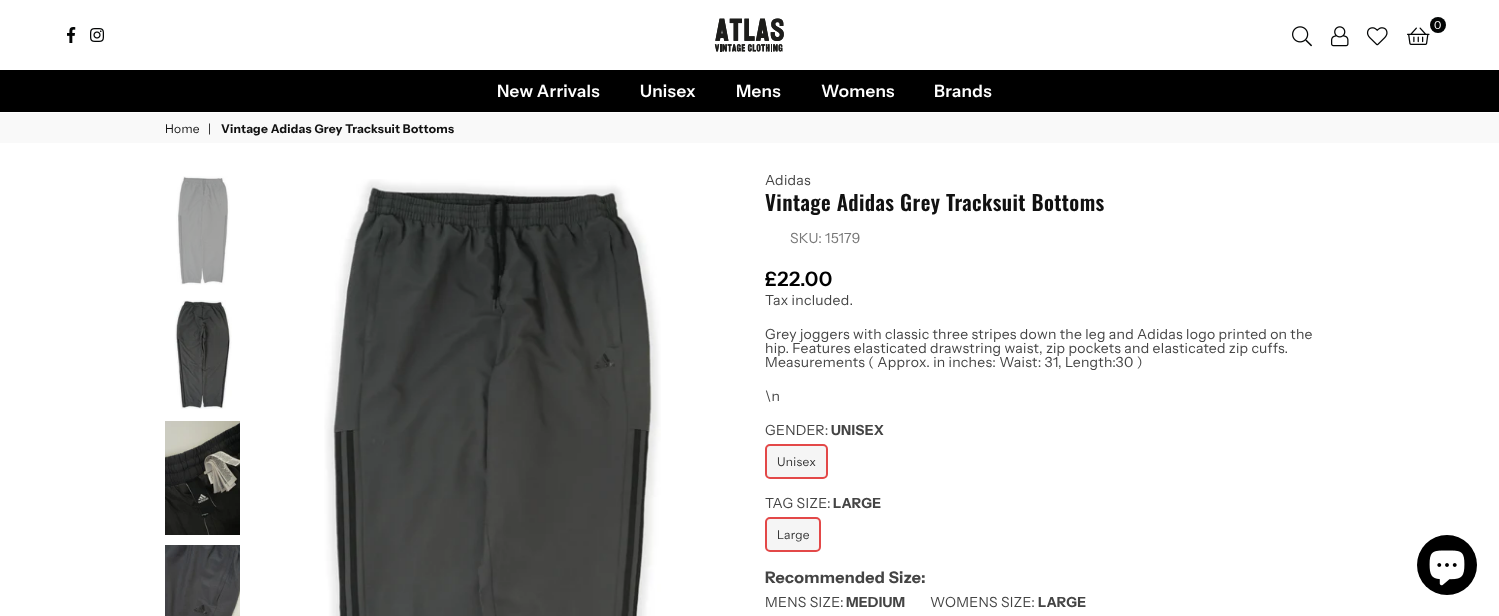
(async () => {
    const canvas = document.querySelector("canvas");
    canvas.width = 1499;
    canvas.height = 616;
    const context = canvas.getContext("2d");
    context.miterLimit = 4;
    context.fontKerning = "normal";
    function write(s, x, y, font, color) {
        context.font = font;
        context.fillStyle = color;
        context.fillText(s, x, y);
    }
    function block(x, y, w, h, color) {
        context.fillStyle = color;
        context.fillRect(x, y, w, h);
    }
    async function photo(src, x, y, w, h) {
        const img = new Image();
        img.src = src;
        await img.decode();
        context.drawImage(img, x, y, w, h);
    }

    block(0, 0, 1499, 616, "rgb(255, 255, 255)");
    await photo("media/1.png", 714, 18, 70, 34);
    await photo("media/2.png", 1292, 26, 20, 21);
    await photo("media/3.png", 1331, 26, 18, 21);
    await photo("media/4.png", 1366, 27, 22, 19);
    context.fillStyle = "rgb(3, 5, 5)";
    context.beginPath();
    context.arc(1438, 25, 8, 0, Math.PI * 2);
    context.fill();
    context.letterSpacing = "0.28px";
    write("0", 1434, 29, "11px Instrument Sans", "rgb(255, 255, 255)");
    await photo("media/5.png", 1407, 27, 23, 18);
    await photo("media/6.png", 67, 27, 9, 16);
    await photo("media/7.png", 90, 28, 14, 14);
    block(0, 70, 1499, 42, "rgb(0, 0, 0)");
    write("New Arrivals", 497, 97, "600 17px Instrument Sans", "rgb(255, 255, 255)");
    write("Unisex", 640, 97, "600 17px Instrument Sans", "rgb(255, 255, 255)");
    write("Mens", 736, 97, "600 17px Instrument Sans", "rgb(255, 255, 255)");
    write("Womens", 821, 97, "600 17px Instrument Sans", "rgb(255, 255, 255)");
    write("Brands", 934, 97, "600 17px Instrument Sans", "rgb(255, 255, 255)");
    block(0, 113, 1499, 30, "rgb(249, 249, 249)");
    write("Home", 165, 133, "12px Instrument Sans", "rgb(17, 17, 17)");
    write("|", 208, 133, "12px Instrument Sans", "rgb(17, 17, 17)");
    write("Vintage Adidas Grey Tracksuit Bottoms", 221, 133, "bold 12px Instrument Sans", "rgb(17, 17, 17)");
    await photo("media/8.png", 176, 176, 54, 109);
    await photo("media/9.png", 174, 300, 58, 109);
    await photo("media/10.png", 165, 421, 75, 114);
    await photo("media/11.png", 165, 545, 75, 71);
    await photo("media/12.png", 324, 179, 337, 437);
    write("Adidas", 765, 185, "14px Instrument Sans", "rgb(68, 68, 68)");
    context.letterSpacing = "0.4px";
    write("Vintage Adidas Grey Tracksuit Bottoms", 765, 211, "600 21px Oswald", "rgb(17, 17, 17)");
    context.letterSpacing = "0.28px";
    write("SKU: 15179", 790, 243, "14px Instrument Sans", "rgb(119, 119, 119)");
    write("£22.00", 765, 286, "600 20px Instrument Sans", "rgb(0, 0, 0)");
    write("Tax included.", 765, 305, "14px Instrument Sans", "rgb(68, 68, 68)");
    write("Grey joggers with classic three stripes down the leg and Adidas logo printed on the", 765, 339, "14px Instrument Sans", "rgb(68, 68, 68)");
    write("hip. Features elasticated drawstring waist, zip pockets and elasticated zip cuffs.", 765, 353, "14px Instrument Sans", "rgb(68, 68, 68)");
    write("Measurements ( Approx. in inches: Waist: 31, Length:30 )", 765, 367, "14px Instrument Sans", "rgb(68, 68, 68)");
    write("\\n", 765, 401, "14px Instrument Sans", "rgb(68, 68, 68)");
    write("GENDER:", 765, 435, "14px Instrument Sans", "rgb(68, 68, 68)");
    write("UNISEX", 831, 435, "bold 14px Instrument Sans", "rgb(68, 68, 68)");
    context.fillStyle = "rgb(245, 245, 245)";
    context.beginPath();
    context.roundRect(766, 445, 61, 33, 4);
    context.fill();
    context.strokeStyle = "rgb(227, 72, 72)";
    context.lineWidth = 2;
    context.stroke();
    write("Unisex", 777, 466, "12px Instrument Sans", "rgb(51, 51, 51)");
    write("TAG SIZE:", 765, 508, "14px Instrument Sans", "rgb(68, 68, 68)");
    write("LARGE", 833, 508, "bold 14px Instrument Sans", "rgb(68, 68, 68)");
    context.fillStyle = "rgb(245, 245, 245)";
    context.beginPath();
    context.roundRect(766, 518, 54, 33, 4);
    context.fill();
    context.stroke();
    write("Large", 777, 539, "12px Instrument Sans", "rgb(51, 51, 51)");
    write("Recommended Size:", 765, 583, "bold 16px Instrument Sans", "rgb(68, 68, 68)");
    write("MENS SIZE:", 765, 607, "14px Instrument Sans", "rgb(68, 68, 68)");
    write("MEDIUM", 846, 607, "bold 14px Instrument Sans", "rgb(68, 68, 68)");
    write("WOMENS SIZE:", 930, 607, "14px Instrument Sans", "rgb(68, 68, 68)");
    write("LARGE", 1038, 607, "bold 14px Instrument Sans", "rgb(68, 68, 68)");
    context.fillStyle = "rgb(0, 0, 0)";
    context.beginPath();
    context.arc(1447, 565, 30, 0, Math.PI * 2);
    context.fill();
    await photo("media/13.png", 1429, 550, 36, 36);
})();
